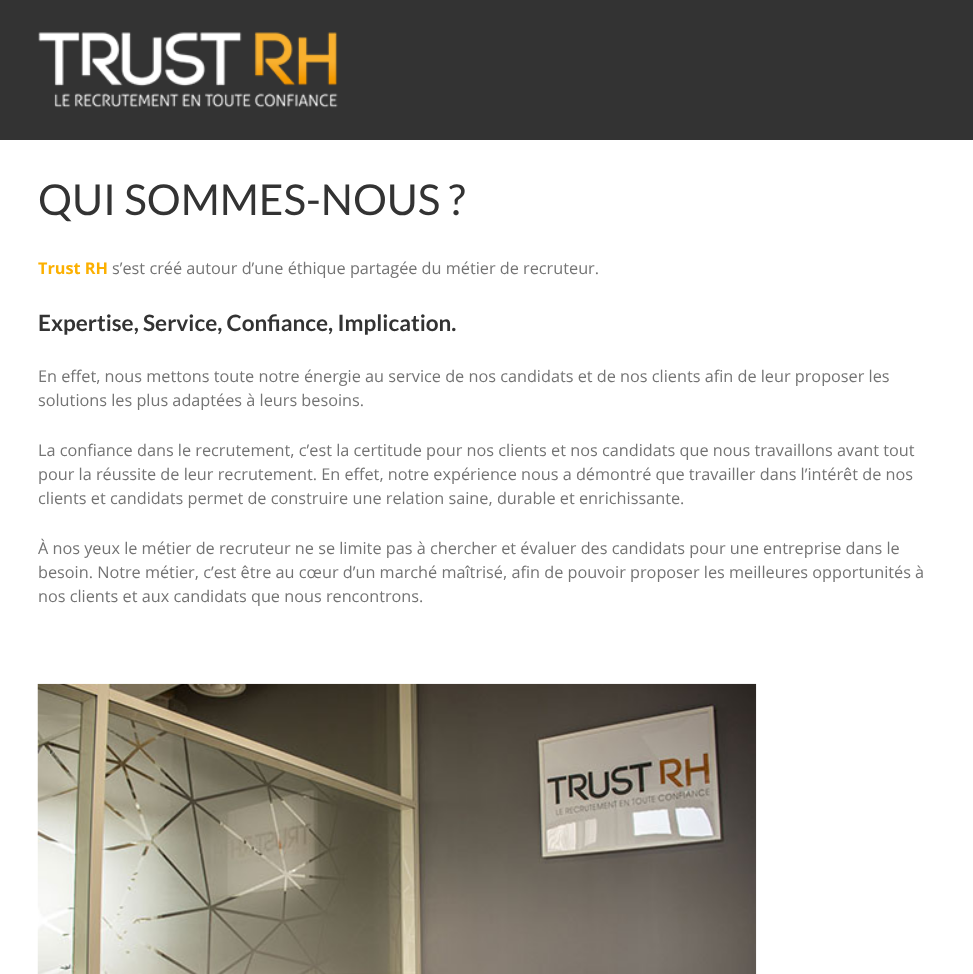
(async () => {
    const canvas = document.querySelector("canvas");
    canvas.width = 973;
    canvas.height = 974;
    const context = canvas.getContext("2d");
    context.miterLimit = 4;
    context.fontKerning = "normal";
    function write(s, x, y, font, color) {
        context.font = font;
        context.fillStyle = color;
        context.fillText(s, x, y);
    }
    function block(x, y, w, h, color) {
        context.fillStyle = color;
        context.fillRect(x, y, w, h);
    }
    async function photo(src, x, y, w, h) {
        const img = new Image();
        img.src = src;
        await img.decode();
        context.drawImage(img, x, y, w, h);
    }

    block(0, 0, 973, 974, "rgb(255, 255, 255)");
    block(0, 0, 973, 140, "rgb(51, 51, 51)");
    await photo("media/1.png", 38, 32, 300, 76);
    write("QUI SOMMES-NOUS ?", 38, 215, "42.5px Lato", "rgb(51, 51, 51)");
    write("Trust RH", 38, 274, "bold 16.25px Open Sans", "rgb(252, 176, 0)");
    write("s’est créé autour d’une éthique partagée du métier de recruteur.", 112, 274, "16.25px Open Sans", "rgb(116, 116, 116)");
    write("Expertise, Service, Confiance, Implication.", 38, 331, "bold 22.5px Lato", "rgb(51, 51, 51)");
    write("En effet, nous mettons toute notre énergie au service de nos candidats et de nos clients afin de leur proposer les", 38, 382, "16.25px Open Sans", "rgb(116, 116, 116)");
    write("solutions les plus adaptées à leurs besoins.", 38, 406, "16.25px Open Sans", "rgb(116, 116, 116)");
    write("La confiance dans le recrutement, c’est la certitude pour nos clients et nos candidats que nous travaillons avant tout", 38, 456, "16.25px Open Sans", "rgb(116, 116, 116)");
    write("pour la réussite de leur recrutement. En effet, notre expérience nous a démontré que travailler dans l’intérêt de nos", 38, 480, "16.25px Open Sans", "rgb(116, 116, 116)");
    write("clients et candidats permet de construire une relation saine, durable et enrichissante.", 38, 504, "16.25px Open Sans", "rgb(116, 116, 116)");
    write("À nos yeux le métier de recruteur ne se limite pas à chercher et évaluer des candidats pour une entreprise dans le", 38, 554, "16.25px Open Sans", "rgb(116, 116, 116)");
    write("besoin. Notre métier, c’est être au cœur d’un marché maîtrisé, afin de pouvoir proposer les meilleures opportunités à", 38, 578, "16.25px Open Sans", "rgb(116, 116, 116)");
    write("nos clients et aux candidats que nous rencontrons.", 38, 602, "16.25px Open Sans", "rgb(116, 116, 116)");
    await photo("media/2.png", 37, 683, 720, 291);
})();
